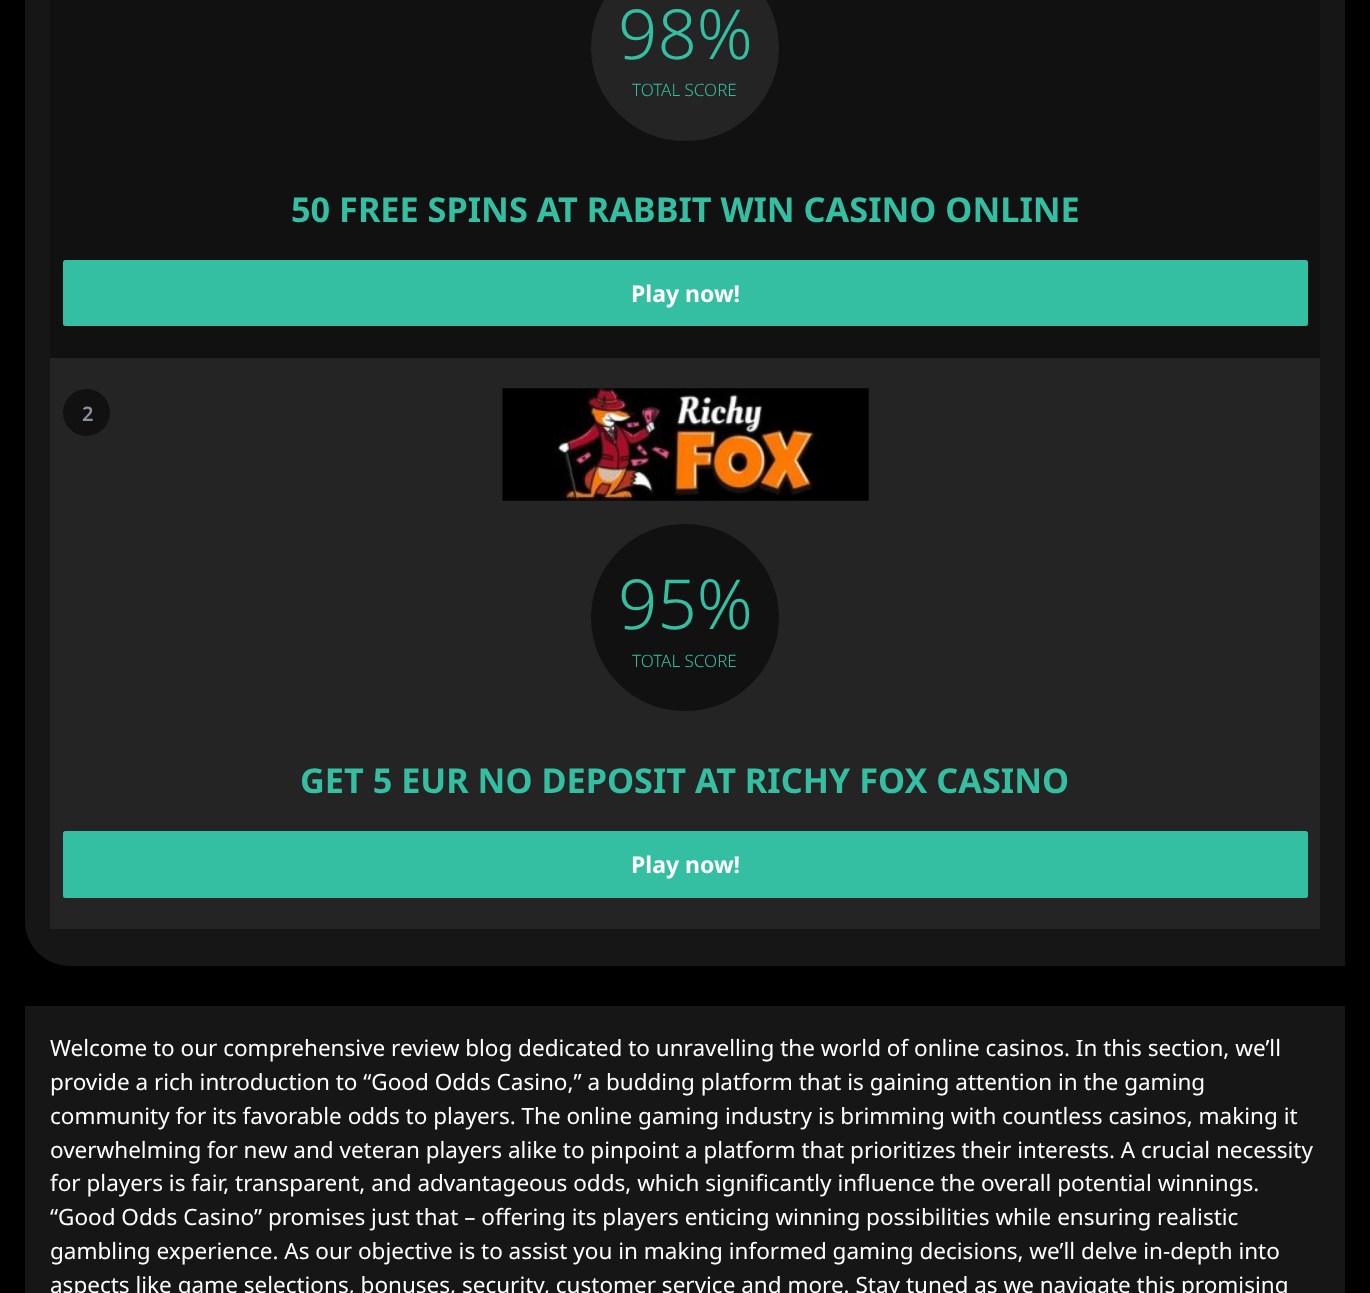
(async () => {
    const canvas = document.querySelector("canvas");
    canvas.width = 1370;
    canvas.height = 1293;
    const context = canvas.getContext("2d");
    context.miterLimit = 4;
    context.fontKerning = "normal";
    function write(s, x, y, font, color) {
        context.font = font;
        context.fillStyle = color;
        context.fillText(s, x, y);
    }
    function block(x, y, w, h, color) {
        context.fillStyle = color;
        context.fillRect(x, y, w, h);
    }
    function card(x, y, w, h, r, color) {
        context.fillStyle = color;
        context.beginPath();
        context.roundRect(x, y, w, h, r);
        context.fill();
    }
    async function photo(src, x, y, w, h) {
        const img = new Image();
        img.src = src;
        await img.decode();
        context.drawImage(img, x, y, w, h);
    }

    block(0, 0, 1370, 1293, "rgb(0, 0, 0)");
    context.fillStyle = "rgb(22, 22, 22)";
    context.beginPath();
    context.moveTo(25, -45);
    context.lineTo(1345, -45);
    context.lineTo(1345, 966);
    context.lineTo(70, 966);
    context.bezierCurveTo(45, 966, 25, 946, 25, 921);
    context.closePath();
    context.fill();
    block(50, 0, 1270, 358, "rgb(17, 17, 17)");
    card(591, -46, 188, 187, 93.5, "rgb(36, 36, 36)");
    write("98%", 618, 59, "300 69px Noto Sans", "rgb(52, 191, 163)");
    write("TOTAL SCORE", 632, 96, "300 17px Noto Sans", "rgb(52, 191, 163)");
    write("50 FREE SPINS AT RABBIT WIN CASINO ONLINE", 291, 222, "bold 34.25px Noto Sans", "rgb(52, 191, 163)");
    card(63, 260, 1245, 66, 2.5, "rgb(52, 191, 163)");
    write("Play now!", 631, 302, "bold 23px Noto Sans", "rgb(255, 255, 255)");
    block(50, 358, 1270, 571, "rgb(36, 36, 36)");
    context.fillStyle = "rgb(17, 17, 17)";
    context.beginPath();
    context.arc(86.5, 412.5, 23.5, 0, Math.PI * 2);
    context.fill();
    write("2", 82, 421, "600 20px Noto Sans", "rgb(141, 143, 158)");
    await photo("media/1.png", 502, 388, 367, 113);
    card(591, 524, 188, 187, 93.5, "rgb(17, 17, 17)");
    write("95%", 618, 629, "300 69px Noto Sans", "rgb(52, 191, 163)");
    write("TOTAL SCORE", 632, 667, "300 17px Noto Sans", "rgb(52, 191, 163)");
    write("GET 5 EUR NO DEPOSIT AT RICHY FOX CASINO", 300, 793, "bold 34.25px Noto Sans", "rgb(52, 191, 163)");
    card(63, 831, 1245, 67, 2.5, "rgb(52, 191, 163)");
    write("Play now!", 631, 873, "bold 23px Noto Sans", "rgb(255, 255, 255)");
    block(25, 1006, 1320, 287, "rgb(22, 22, 22)");
    write("Welcome to our comprehensive review blog dedicated to unravelling the world of online casinos. In this section, we’ll", 50, 1056, "22.5px Noto Sans", "rgb(255, 255, 255)");
    write("provide a rich introduction to “Good Odds Casino,” a budding platform that is gaining attention in the gaming", 50, 1090, "22.5px Noto Sans", "rgb(255, 255, 255)");
    write("community for its favorable odds to players. The online gaming industry is brimming with countless casinos, making it", 50, 1124, "22.5px Noto Sans", "rgb(255, 255, 255)");
    write("overwhelming for new and veteran players alike to pinpoint a platform that prioritizes their interests. A crucial necessity", 50, 1158, "22.5px Noto Sans", "rgb(255, 255, 255)");
    write("for players is fair, transparent, and advantageous odds, which significantly influence the overall potential winnings.", 50, 1191, "22.5px Noto Sans", "rgb(255, 255, 255)");
    write("“Good Odds Casino” promises just that – offering its players enticing winning possibilities while ensuring realistic", 50, 1225, "22.5px Noto Sans", "rgb(255, 255, 255)");
    write("gambling experience. As our objective is to assist you in making informed gaming decisions, we’ll delve in-depth into", 50, 1259, "22.5px Noto Sans", "rgb(255, 255, 255)");
    write("aspects like game selections, bonuses, security, customer service and more. Stay tuned as we navigate this promising", 50, 1293, "22.5px Noto Sans", "rgb(255, 255, 255)");
})();
